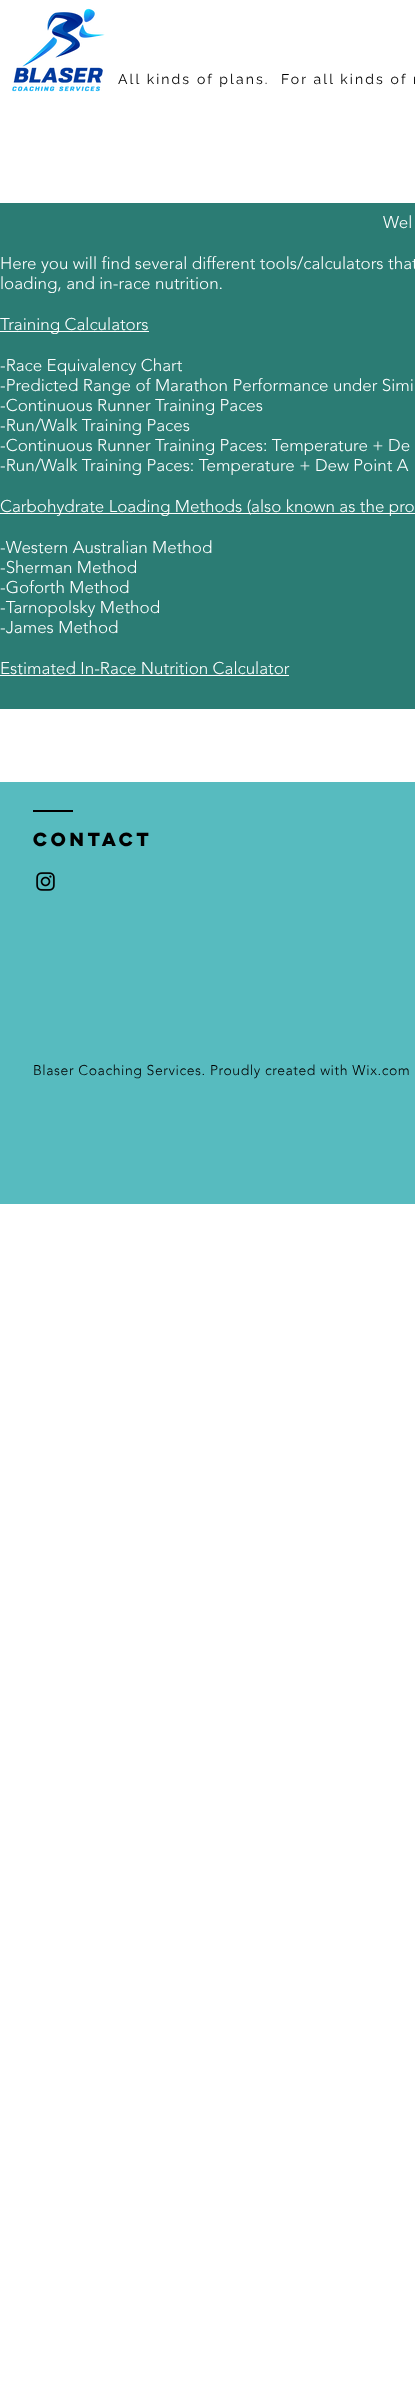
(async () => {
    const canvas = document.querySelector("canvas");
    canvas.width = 415;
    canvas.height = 2400;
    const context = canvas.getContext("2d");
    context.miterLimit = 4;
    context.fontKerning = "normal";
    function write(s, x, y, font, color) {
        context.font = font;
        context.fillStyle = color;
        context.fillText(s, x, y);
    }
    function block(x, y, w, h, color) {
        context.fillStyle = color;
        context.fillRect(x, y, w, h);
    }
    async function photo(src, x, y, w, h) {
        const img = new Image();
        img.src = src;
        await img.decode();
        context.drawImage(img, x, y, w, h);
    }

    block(0, 0, 415, 2400, "rgb(255, 255, 255)");
    await photo("media/1.png", 12, 8, 93, 84);
    context.letterSpacing = "2.1px";
    write("All kinds of plans.  For all kinds of r", 118, 84, "14px Raleway", "rgb(0, 0, 0)");
    block(0, 203, 415, 506, "rgb(43, 124, 116)");
    context.letterSpacing = "0px";
    write("Wel", 383, 228, "300 17px 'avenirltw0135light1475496'", "rgb(255, 255, 255)");
    write("Here you will find several different tools/calculators that", 0, 269, "300 17px 'avenirltw0135light1475496'", "rgb(255, 255, 255)");
    write("loading, and in-race nutrition.", 0, 289, "300 17px 'avenirltw0135light1475496'", "rgb(255, 255, 255)");
    block(0, 331, 149, 1, "rgb(255, 255, 255)");
    write("Training Calculators", 0, 330, "300 17px 'avenirltw0135light1475496'", "rgb(255, 255, 255)");
    write("-Race Equivalency Chart", 0, 371, "300 17px 'avenirltw0135light1475496'", "rgb(255, 255, 255)");
    write("-Predicted Range of Marathon Performance under Simi", 0, 391, "300 17px 'avenirltw0135light1475496'", "rgb(255, 255, 255)");
    write("-Continuous Runner Training Paces", 0, 411, "300 17px 'avenirltw0135light1475496'", "rgb(255, 255, 255)");
    write("-Run/Walk Training Paces", 0, 431, "300 17px 'avenirltw0135light1475496'", "rgb(255, 255, 255)");
    write("-Continuous Runner Training Paces: Temperature + De", 0, 451, "300 17px 'avenirltw0135light1475496'", "rgb(255, 255, 255)");
    write("-Run/Walk Training Paces: Temperature + Dew Point A", 0, 471, "300 17px 'avenirltw0135light1475496'", "rgb(255, 255, 255)");
    block(0, 513, 415, 1, "rgb(255, 255, 255)");
    write("Carbohydrate Loading Methods (also known as the pro", 0, 512, "300 17px 'avenirltw0135light1475496'", "rgb(255, 255, 255)");
    write("-Western Australian Method", 0, 553, "300 17px 'avenirltw0135light1475496'", "rgb(255, 255, 255)");
    write("-Sherman Method", 0, 573, "300 17px 'avenirltw0135light1475496'", "rgb(255, 255, 255)");
    write("-Goforth Method", 0, 593, "300 17px 'avenirltw0135light1475496'", "rgb(255, 255, 255)");
    write("-Tarnopolsky Method", 0, 613, "300 17px 'avenirltw0135light1475496'", "rgb(255, 255, 255)");
    write("-James Method", 0, 633, "300 17px 'avenirltw0135light1475496'", "rgb(255, 255, 255)");
    write("Estimated In-Race Nutrition Calculator", 0, 674, "300 17px 'avenirltw0135light1475496'", "rgb(255, 255, 255)");
    block(0, 675, 289, 1, "rgb(255, 255, 255)");
    block(0, 782, 415, 422, "rgb(87, 187, 191)");
    block(33, 810, 40, 2, "rgb(0, 0, 0)");
    write("Contact", 33, 846, "bold 17px 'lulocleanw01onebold'", "rgb(0, 0, 0)");
    await photo("media/2.png", 36, 872, 19, 19);
    context.letterSpacing = "0.55px";
    write("Blaser Coaching Services. Proudly created with Wix.com", 33, 1075, "300 14px 'avenirltw0135light1475496'", "rgb(0, 0, 0)");
})();
